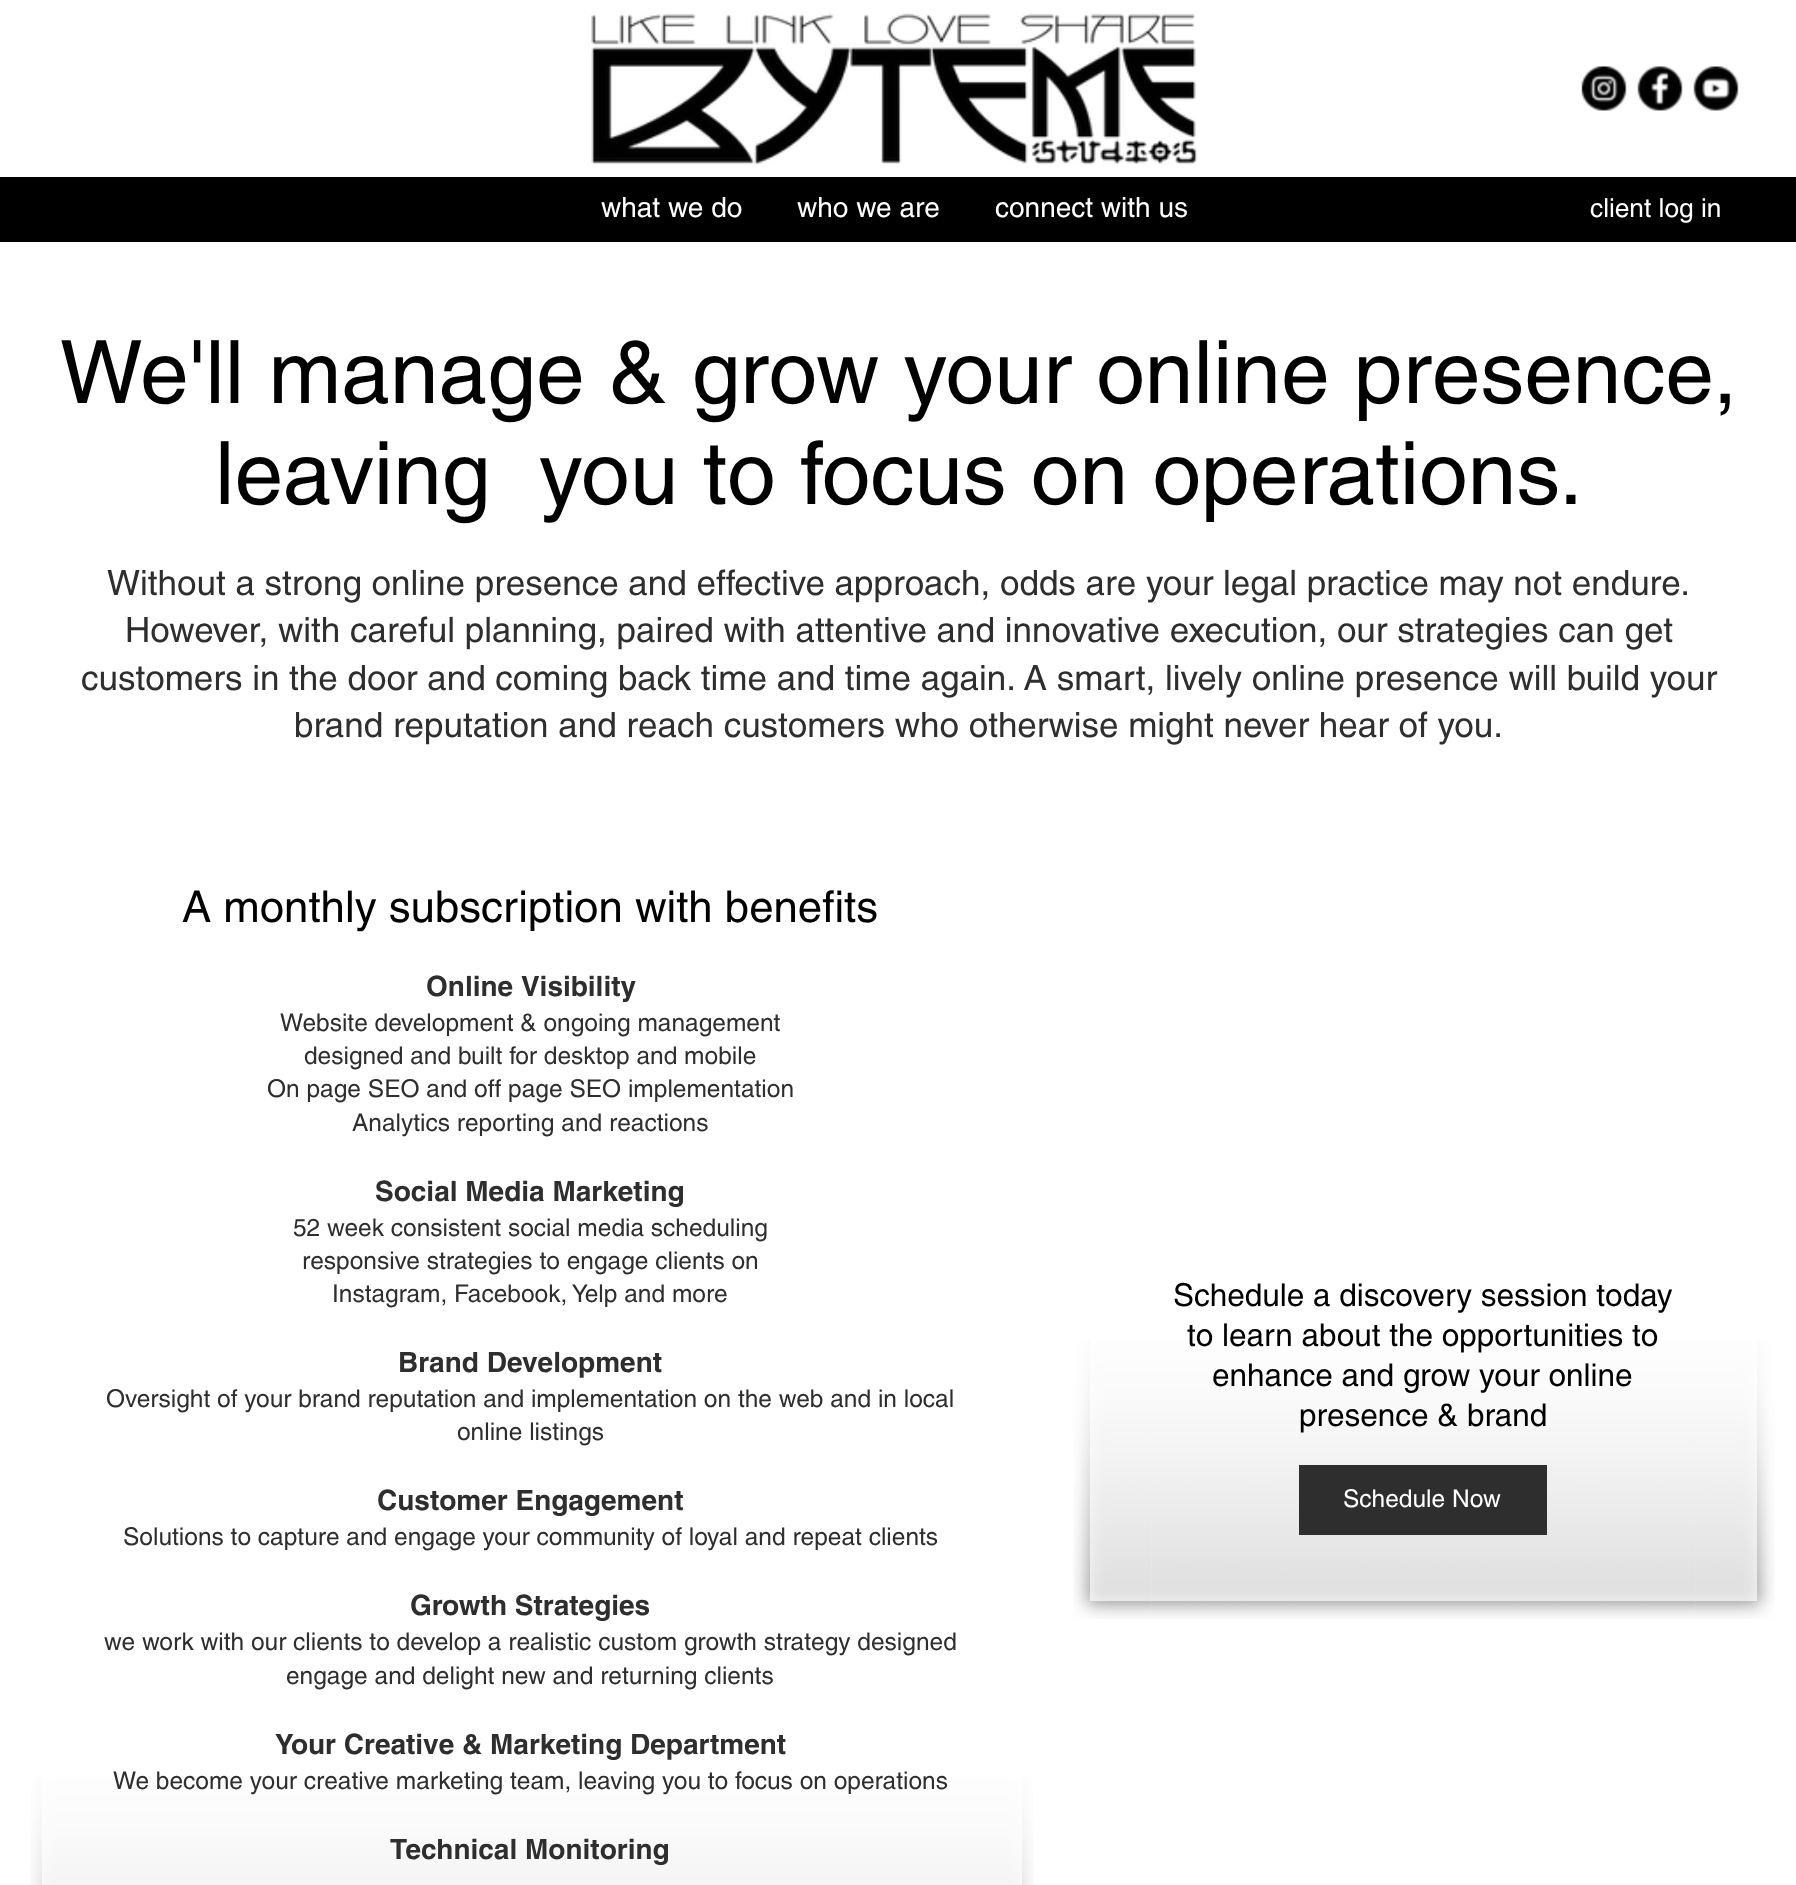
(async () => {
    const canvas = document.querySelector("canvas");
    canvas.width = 1796;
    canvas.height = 1885;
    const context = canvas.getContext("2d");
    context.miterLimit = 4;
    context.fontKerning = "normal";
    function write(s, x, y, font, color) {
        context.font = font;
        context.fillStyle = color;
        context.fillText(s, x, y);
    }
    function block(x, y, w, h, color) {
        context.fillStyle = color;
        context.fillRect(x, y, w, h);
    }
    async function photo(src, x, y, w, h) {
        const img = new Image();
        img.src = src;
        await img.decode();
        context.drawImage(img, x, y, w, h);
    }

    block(0, 0, 1796, 1885, "rgb(255, 255, 255)");
    await photo("media/1.png", 591, 13, 607, 152);
    await photo("media/2.png", 1581, 66, 46, 45);
    await photo("media/3.png", 1637, 66, 46, 45);
    await photo("media/4.png", 1693, 66, 46, 45);
    block(0, 177, 1796, 65, "rgb(0, 0, 0)");
    write("what we do", 601, 217, "28px helvetica", "rgb(255, 255, 255)");
    write("who we are", 797, 217, "28px helvetica", "rgb(255, 255, 255)");
    write("connect with us", 995, 217, "28px helvetica", "rgb(255, 255, 255)");
    write("client log in", 1590, 217, "26.25px helvetica", "rgb(255, 255, 255)");
    write("We'll manage & grow your online presence", 60, 403, "87.5px helvetica", "rgb(0, 0, 0)");
    write(",", 1713, 403, "87.5px helvetica", "rgb(0, 0, 0)");
    write("leaving  you to focus on operations.", 215, 504, "87.5px helvetica", "rgb(0, 0, 0)");
    write("Without a strong online presence and effective approach, odds are your legal practice may not endure.", 107, 595, "35px helvetica", "rgb(47, 46, 46)");
    write("However, with careful planning, paired with attentive and innovative execution, our strategies can get", 125, 642, "35px helvetica", "rgb(47, 46, 46)");
    write("customers in the door and coming back time and time again. A smart, lively online presence will build your", 81, 690, "35px helvetica", "rgb(47, 46, 46)");
    write("brand reputation and reach customers who otherwise might never hear of you.", 294, 737, "35px helvetica", "rgb(47, 46, 46)");
    await photo("media/5.png", 30, 1777, 74, 108);
    write("A monthly subscription with benefits", 182, 922, "43.75px helvetica", "rgb(0, 0, 0)");
    write("Online Visibility", 426, 996, "bold 28px helvetica", "rgb(47, 46, 46)");
    write("Website development & ongoing management", 280, 1031, "24.5px helvetica", "rgb(47, 46, 46)");
    write("designed and built for desktop and mobile", 304, 1064, "24.5px helvetica", "rgb(47, 46, 46)");
    write("On page SEO and off page SEO implementation", 267, 1097, "24.5px helvetica", "rgb(47, 46, 46)");
    write("Analytics reporting and reactions", 352, 1131, "24.5px helvetica", "rgb(47, 46, 46)");
    write("Social Media Marketing", 375, 1201, "bold 28px helvetica", "rgb(47, 46, 46)");
    write("52 week consistent social media scheduling", 293, 1236, "24.5px helvetica", "rgb(47, 46, 46)");
    write("responsive strategies to engage clients on", 302, 1269, "24.5px helvetica", "rgb(47, 46, 46)");
    write("Instagram, Facebook, Yelp and more", 332, 1302, "24.5px helvetica", "rgb(47, 46, 46)");
    write("Brand Development", 398, 1372, "bold 28px helvetica", "rgb(47, 46, 46)");
    write("Oversight of your brand reputation and implementation on the web and in local", 106, 1407, "24.5px helvetica", "rgb(47, 46, 46)");
    write("online listings", 457, 1440, "24.5px helvetica", "rgb(47, 46, 46)");
    write("Customer Engagement", 377, 1510, "bold 28px helvetica", "rgb(47, 46, 46)");
    write("Solutions to capture and engage your community of loyal and repeat clients", 123, 1545, "24.5px helvetica", "rgb(47, 46, 46)");
    write("Growth Strategies", 410, 1615, "bold 28px helvetica", "rgb(47, 46, 46)");
    write("we work with our clients to develop a realistic custom growth strategy designed", 104, 1650, "24.5px helvetica", "rgb(47, 46, 46)");
    write("engage and delight new and returning clients", 286, 1684, "24.5px helvetica", "rgb(47, 46, 46)");
    write("Your Creative & Marketing Department", 275, 1754, "bold 28px helvetica", "rgb(47, 46, 46)");
    await photo("media/6.png", 103, 1777, 858, 108);
    await photo("media/7.png", 960, 1777, 74, 108);
    block(42, 1777, 980, 108, "rgba(255, 255, 255, 0.69)");
    write("We become your creative marketing team, leaving you to focus on operations", 113, 1789, "24.5px helvetica", "rgb(47, 46, 46)");
    write("Technical Monitoring", 390, 1859, "bold 28px helvetica", "rgb(47, 46, 46)");
    await photo("media/8.png", 1073, 1340, 79, 279);
    write("Schedule a discovery session today", 1173, 1306, "31.5px helvetica", "rgb(0, 0, 0)");
    await photo("media/9.png", 1151, 1340, 545, 279);
    await photo("media/10.png", 1695, 1340, 80, 279);
    block(1090, 1340, 667, 261, "rgba(255, 255, 255, 0.69)");
    write("to learn about the opportunities to", 1187, 1346, "31.5px helvetica", "rgb(0, 0, 0)");
    write("enhance and grow your online", 1212, 1386, "31.5px helvetica", "rgb(0, 0, 0)");
    write("presence & brand", 1299, 1426, "31.5px helvetica", "rgb(0, 0, 0)");
    block(1299, 1465, 248, 70, "rgb(47, 46, 46)");
    write("Schedule Now", 1343, 1507, "24.5px helvetica", "rgb(255, 255, 255)");
})();
